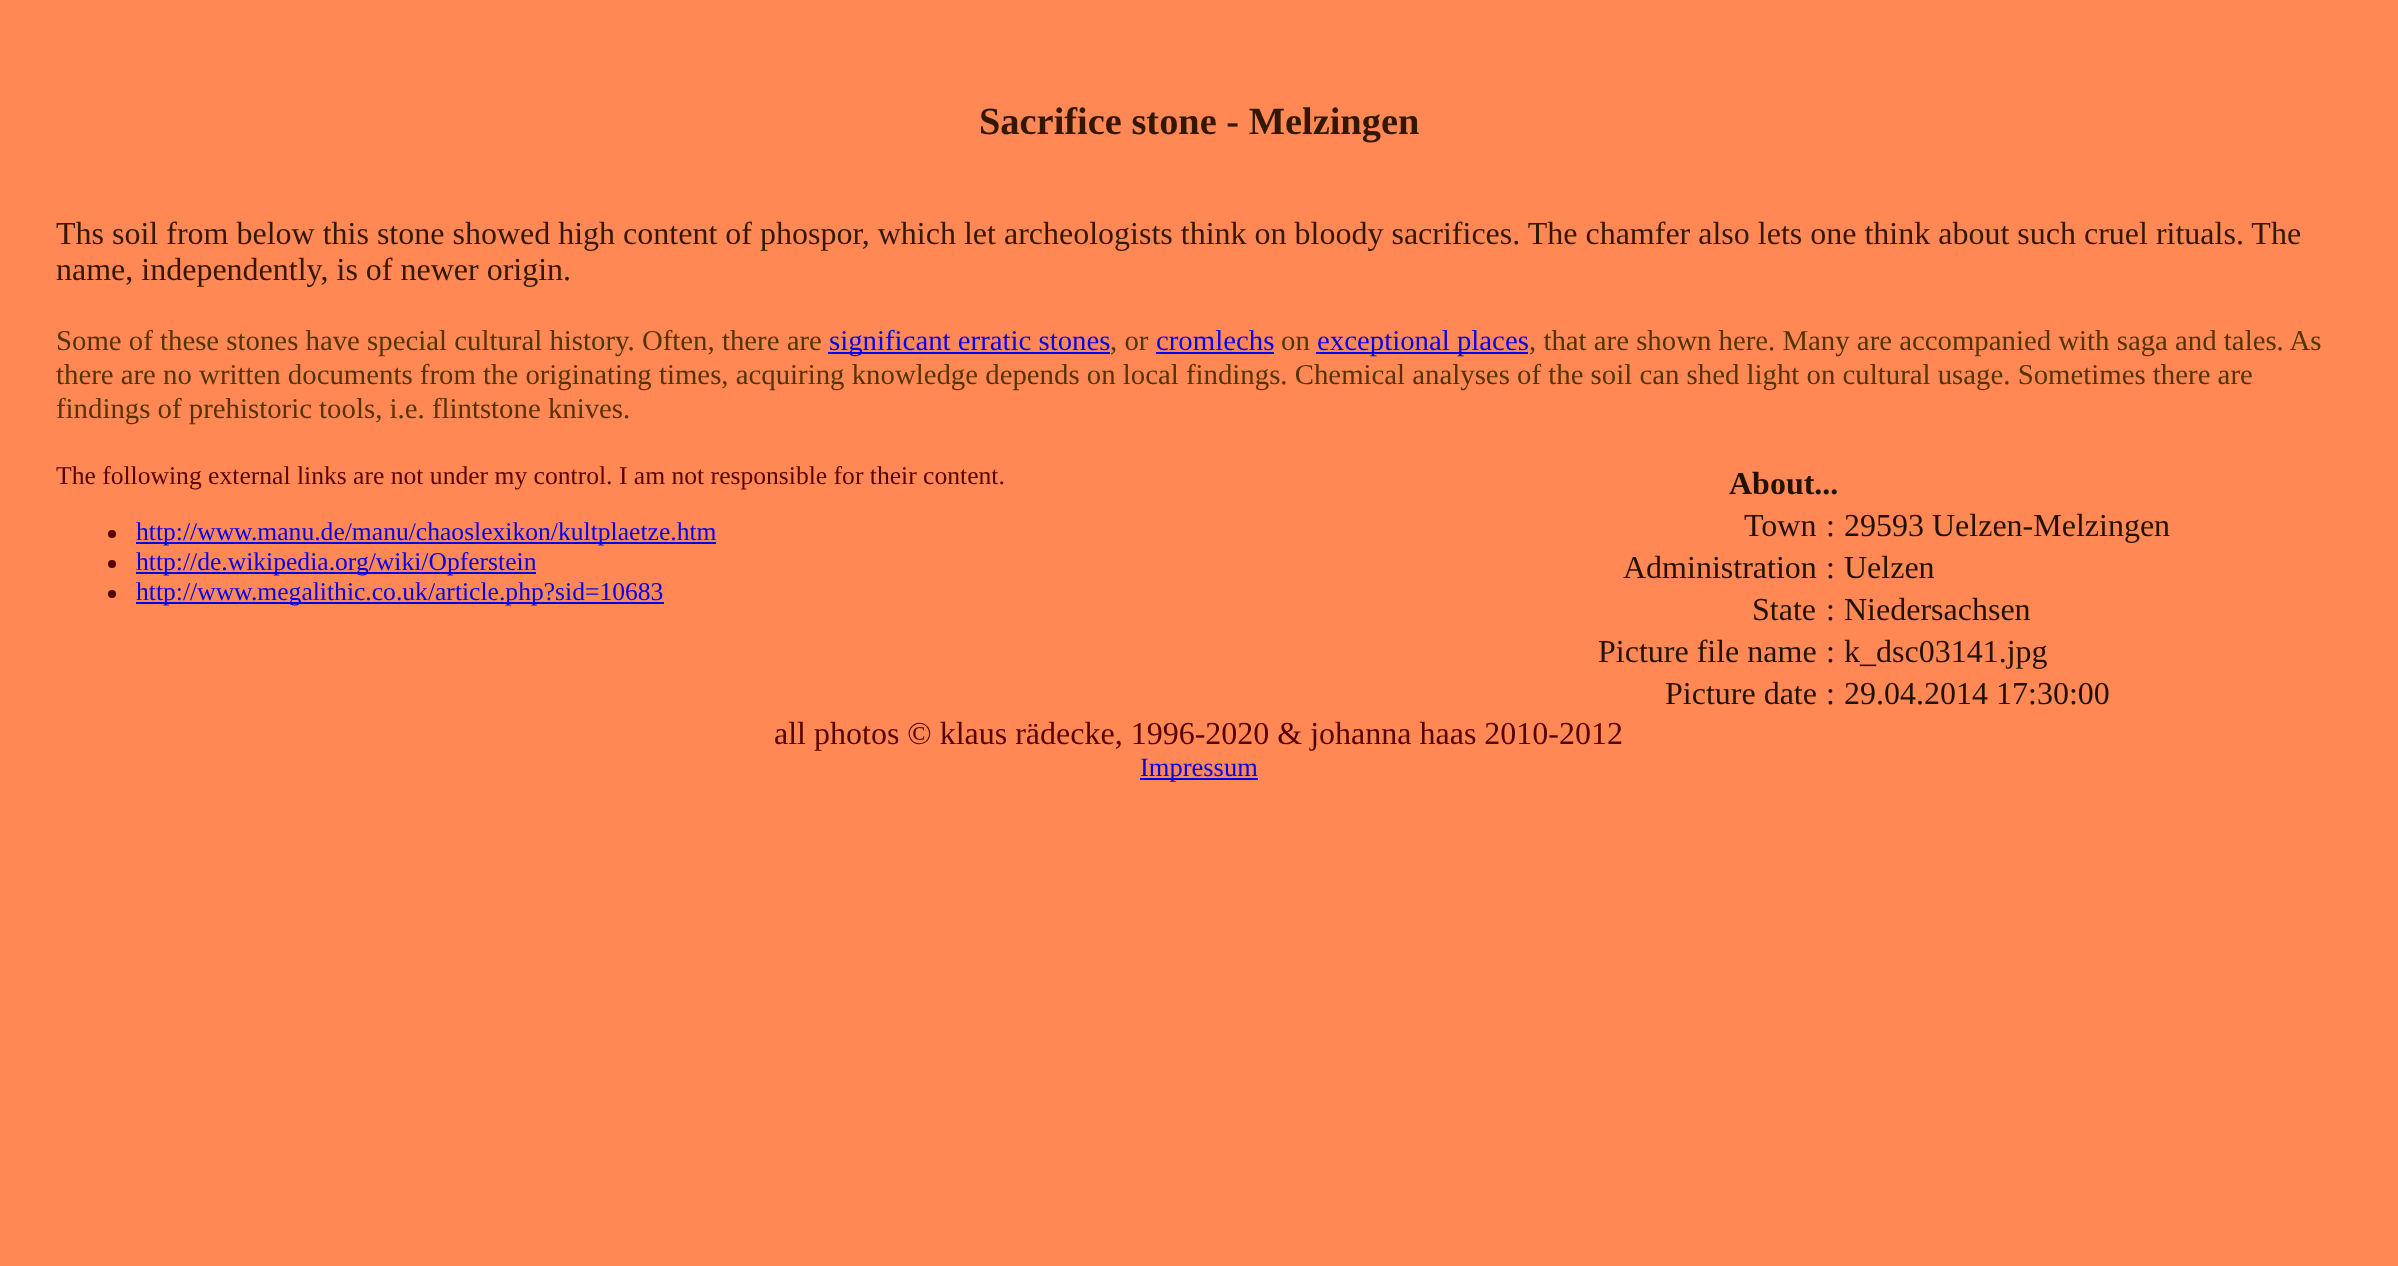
(async () => {
    const canvas = document.querySelector("canvas");
    canvas.width = 2398;
    canvas.height = 1266;
    const context = canvas.getContext("2d");
    context.miterLimit = 4;
    context.fontKerning = "normal";
    function write(s, x, y, font, color) {
        context.font = font;
        context.fillStyle = color;
        context.fillText(s, x, y);
    }
    function block(x, y, w, h, color) {
        context.fillStyle = color;
        context.fillRect(x, y, w, h);
    }

    block(0, 0, 2398, 1266, "rgb(255, 136, 85)");
    write("Sacrifice stone - Melzingen", 979, 134, "bold 38.4px Liberation Serif", "rgb(51, 23, 0)");
    write("Ths soil from below this stone showed high content of phospor, which let archeologists think on bloody sacrifices. The chamfer also lets one think about such cruel rituals. The", 56, 244, "32px Liberation Serif", "rgb(51, 23, 0)");
    write("name, independently, is of newer origin.", 56, 280, "32px Liberation Serif", "rgb(51, 23, 0)");
    write("Some of these stones have special cultural history. Often, there are", 56, 350, "28.8px Liberation Serif", "rgb(85, 51, 0)");
    block(828, 352, 282, 2, "rgb(0, 0, 238)");
    write("significant erratic stones", 829, 350, "28.8px Liberation Serif", "rgb(0, 0, 238)");
    write(", or", 1110, 350, "28.8px Liberation Serif", "rgb(85, 51, 0)");
    block(1156, 352, 118, 2, "rgb(0, 0, 238)");
    write("cromlechs", 1156, 350, "28.8px Liberation Serif", "rgb(0, 0, 238)");
    write("on", 1281, 350, "28.8px Liberation Serif", "rgb(85, 51, 0)");
    block(1316, 352, 212, 2, "rgb(0, 0, 238)");
    write("exceptional places", 1317, 350, "28.8px Liberation Serif", "rgb(0, 0, 238)");
    write(", that are shown here. Many are accompanied with saga and tales. As", 1529, 350, "28.8px Liberation Serif", "rgb(85, 51, 0)");
    write("there are no written documents from the originating times, acquiring knowledge depends on local findings. Chemical analyses of the soil can shed light on cultural usage. Sometimes there are", 56, 384, "28.8px Liberation Serif", "rgb(85, 51, 0)");
    write("findings of prehistoric tools, i.e. flintstone knives.", 56, 418, "28.8px Liberation Serif", "rgb(85, 51, 0)");
    write("The following external links are not under my control. I am not responsible for their content.", 56, 484, "25.6px Liberation Serif", "rgb(85, 0, 0)");
    context.beginPath();
    context.arc(112, 534, 4, 0, Math.PI * 2);
    context.fill();
    block(136, 542, 580, 2, "rgb(0, 0, 238)");
    write("http://www.manu.de/manu/chaoslexikon/kultplaetze.htm", 136, 540, "25.6px Liberation Serif", "rgb(0, 0, 238)");
    context.fillStyle = "rgb(85, 0, 0)";
    context.beginPath();
    context.arc(112, 564, 4, 0, Math.PI * 2);
    context.fill();
    block(136, 572, 400, 2, "rgb(0, 0, 238)");
    write("http://de.wikipedia.org/wiki/Opferstein", 136, 570, "25.6px Liberation Serif", "rgb(0, 0, 238)");
    context.fillStyle = "rgb(85, 0, 0)";
    context.beginPath();
    context.arc(112, 594, 4, 0, Math.PI * 2);
    context.fill();
    block(136, 602, 528, 2, "rgb(0, 0, 238)");
    write("http://www.megalithic.co.uk/article.php?sid=10683", 136, 600, "25.6px Liberation Serif", "rgb(0, 0, 238)");
    write("About...", 1729, 494, "bold 32px Liberation Serif", "rgb(34, 17, 0)");
    write("Town", 1744, 536, "32px Liberation Serif", "rgb(34, 17, 0)");
    write(":", 1826, 536, "32px Liberation Serif", "rgb(34, 17, 0)");
    write("29593 Uelzen-Melzingen", 1844, 536, "32px Liberation Serif", "rgb(34, 17, 0)");
    write("Administration", 1623, 578, "32px Liberation Serif", "rgb(34, 17, 0)");
    write(":", 1826, 578, "32px Liberation Serif", "rgb(34, 17, 0)");
    write("Uelzen", 1844, 578, "32px Liberation Serif", "rgb(34, 17, 0)");
    write("State", 1752, 620, "32px Liberation Serif", "rgb(34, 17, 0)");
    write(":", 1826, 620, "32px Liberation Serif", "rgb(34, 17, 0)");
    write("Niedersachsen", 1844, 620, "32px Liberation Serif", "rgb(34, 17, 0)");
    write("Picture file name", 1598, 662, "32px Liberation Serif", "rgb(34, 17, 0)");
    write(":", 1826, 662, "32px Liberation Serif", "rgb(34, 17, 0)");
    write("k_dsc03141.jpg", 1844, 662, "32px Liberation Serif", "rgb(34, 17, 0)");
    write("Picture date", 1665, 704, "32px Liberation Serif", "rgb(34, 17, 0)");
    write(":", 1826, 704, "32px Liberation Serif", "rgb(34, 17, 0)");
    write("29.04.2014 17:30:00", 1844, 704, "32px Liberation Serif", "rgb(34, 17, 0)");
    write("all photos © klaus rädecke, 1996-2020 & johanna haas 2010-2012", 774, 744, "32px Liberation Serif", "rgb(85, 0, 0)");
    block(1140, 778, 118, 2, "rgb(0, 0, 238)");
    write("Impressum", 1140, 776, "26.5px Liberation Serif", "rgb(0, 0, 238)");
})();
